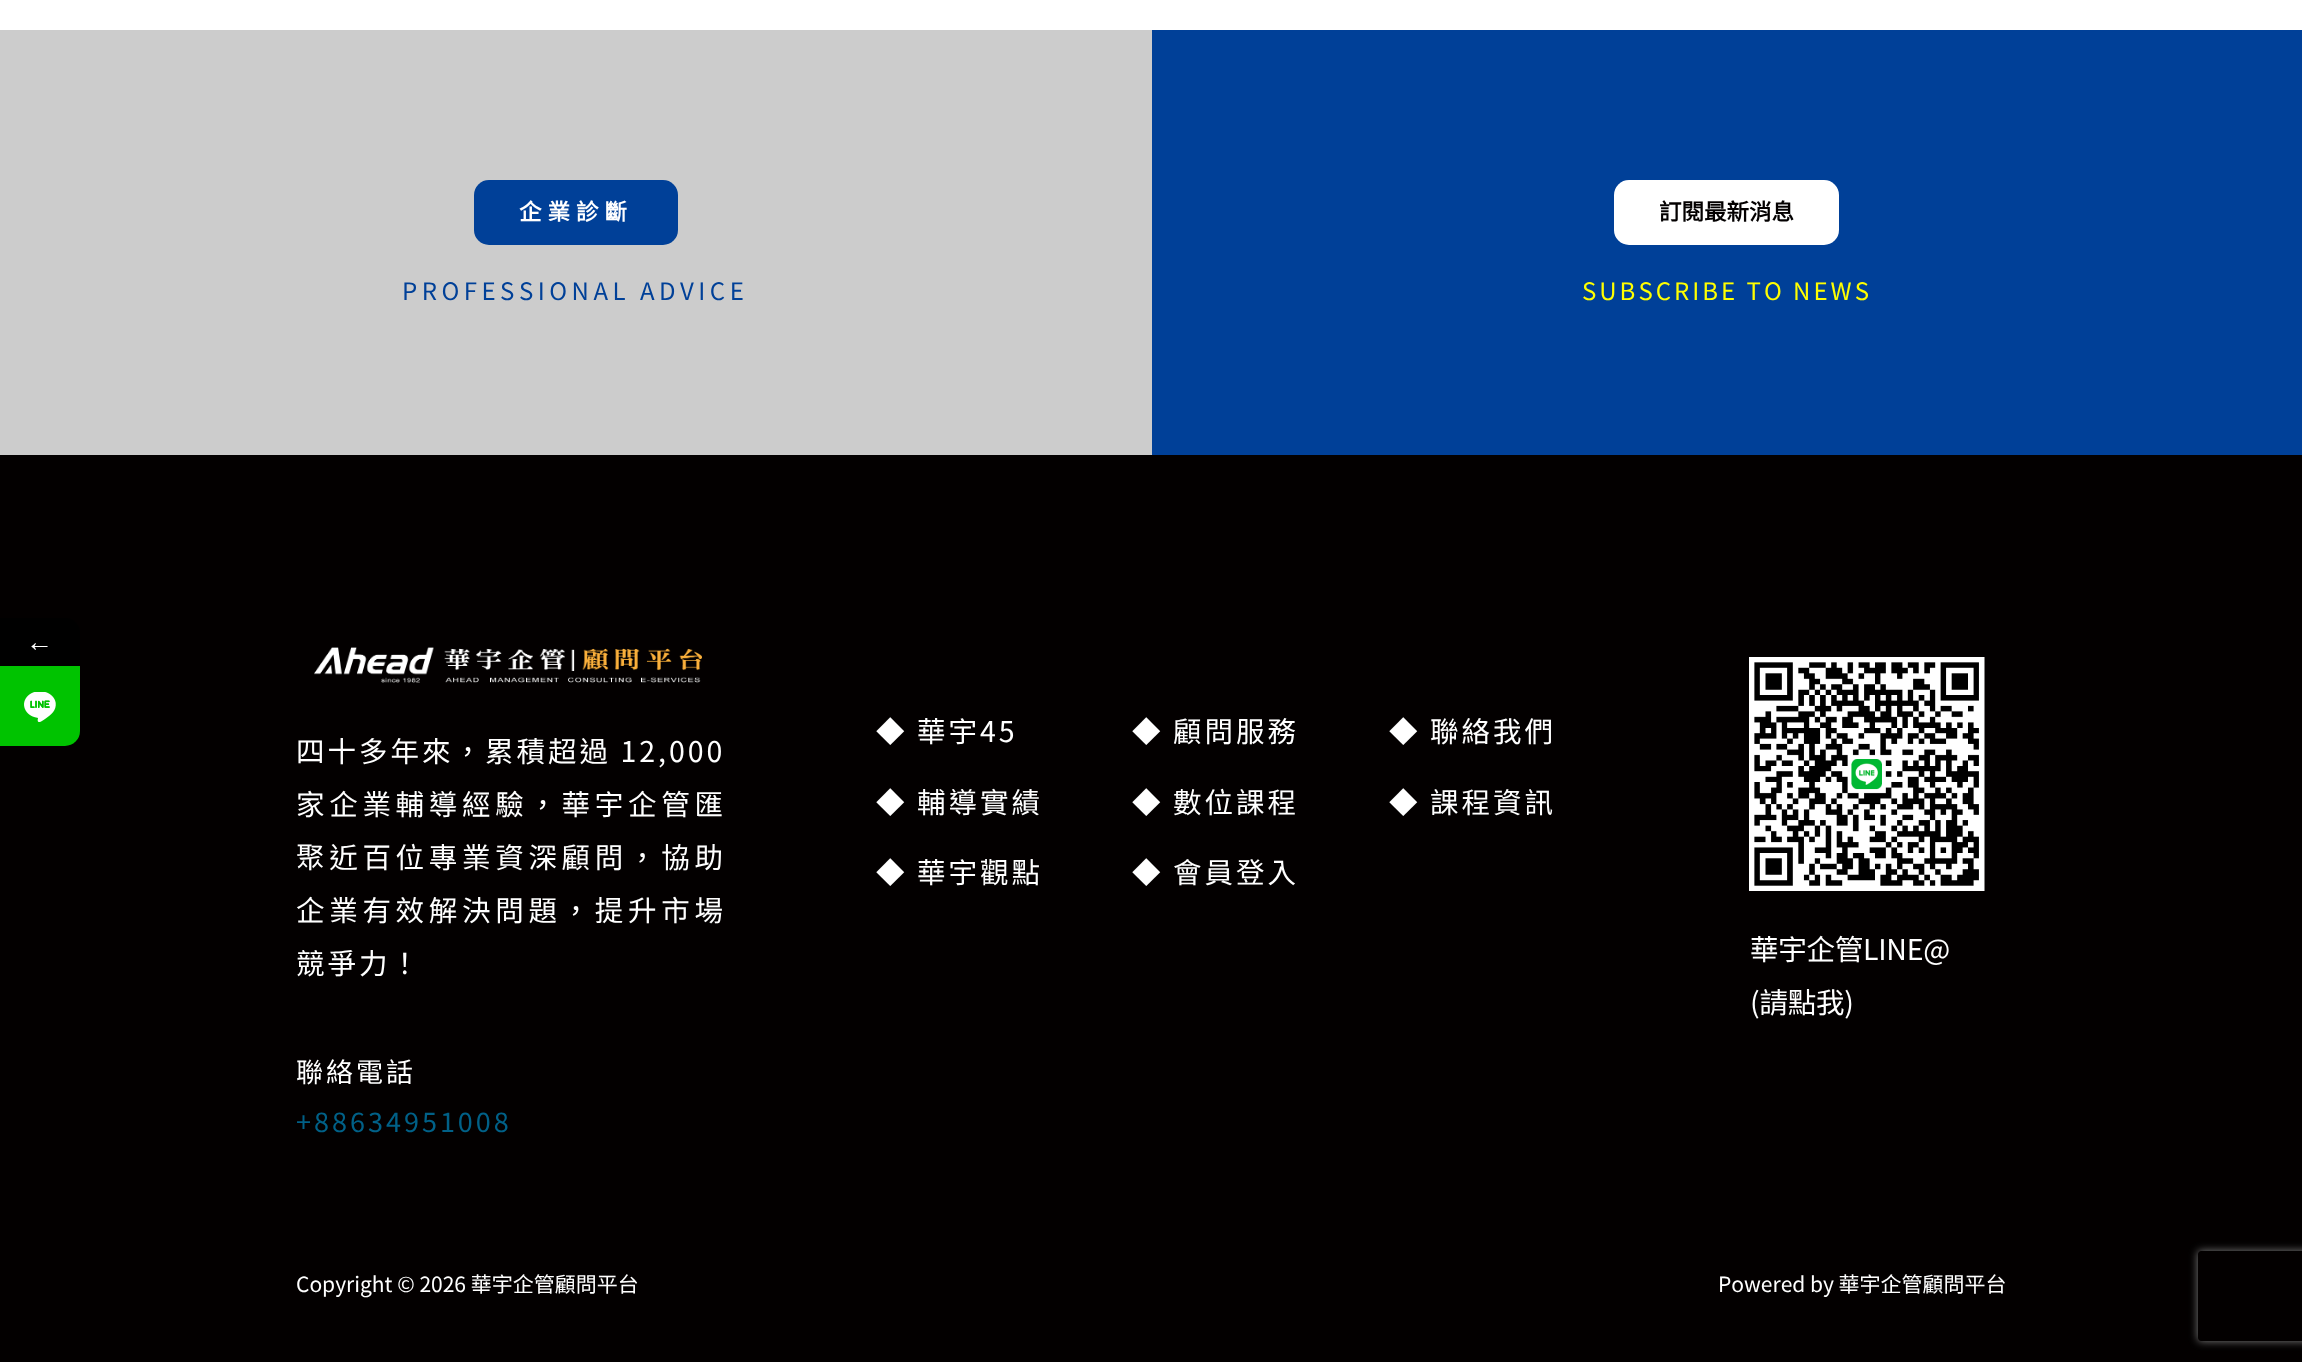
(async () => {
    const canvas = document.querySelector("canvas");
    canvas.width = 2302;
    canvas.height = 1362;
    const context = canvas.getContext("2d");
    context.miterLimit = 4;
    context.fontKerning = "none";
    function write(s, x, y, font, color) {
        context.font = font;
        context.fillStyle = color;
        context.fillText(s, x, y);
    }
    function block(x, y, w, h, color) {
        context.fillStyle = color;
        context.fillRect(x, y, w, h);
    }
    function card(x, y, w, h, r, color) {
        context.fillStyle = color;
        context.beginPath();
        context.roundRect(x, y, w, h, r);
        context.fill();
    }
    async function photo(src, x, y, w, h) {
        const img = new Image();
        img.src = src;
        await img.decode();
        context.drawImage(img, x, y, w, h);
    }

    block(0, 0, 2302, 1362, "rgb(255, 255, 255)");
    block(0, 455, 2302, 907, "rgb(3, 0, 0)");
    context.fillStyle = "rgb(0, 0, 0)";
    context.beginPath();
    context.roundRect(0, 618, 80, 48, [0, 15, 0, 0]);
    context.fill();
    write("←", 26, 651, "27px Liberation Serif", "rgb(255, 255, 255)");
    context.fillStyle = "rgb(0, 195, 0)";
    context.beginPath();
    context.roundRect(0, 666, 80, 80, [0, 0, 15, 0]);
    context.fill();
    await photo("media/1.png", 24, 692, 32, 30);
    block(1152, 30, 1150, 425, "rgb(0, 64, 152)");
    block(0, 30, 1152, 425, "rgb(204, 204, 204)");
    card(474, 180, 204, 65, 15, "rgb(0, 64, 152)");
    context.letterSpacing = "6px";
    write("企業診斷", 519, 220, "bold 22.5px Noto Sans CJK TC", "rgb(255, 255, 255)");
    context.letterSpacing = "4.5px";
    write("PROFESSIONAL ADVICE", 402, 300, "100 24px Noto Sans TC", "rgb(0, 64, 152)");
    card(1614, 180, 225, 65, 15, "rgb(255, 255, 255)");
    context.letterSpacing = "0px";
    write("訂閱最新消息", 1659, 220, "bold 22.5px Noto Sans CJK TC", "rgb(3, 0, 0)");
    context.letterSpacing = "3px";
    write("SUBSCRIBE TO NEWS", 1582, 300, "100 24px Noto Sans TC", "rgb(255, 255, 0)");
    await photo("media/2.png", 314, 647, 388, 36);
    write("四十多年來，累積超過 12,000", 296, 762, "100 28.5px Noto Sans TC", "rgb(255, 255, 255)");
    context.letterSpacing = "4.7px";
    write("家企業輔導經驗，華宇企管匯", 296, 815, "100 28.5px Noto Sans TC", "rgb(255, 255, 255)");
    write("聚近百位專業資深顧問，協助", 296, 868, "100 28.5px Noto Sans TC", "rgb(255, 255, 255)");
    write("企業有效解決問題，提升市場", 296, 921, "100 28.5px Noto Sans TC", "rgb(255, 255, 255)");
    context.letterSpacing = "3px";
    write("競爭力！", 296, 974, "100 28.5px Noto Sans TC", "rgb(255, 255, 255)");
    write("聯絡電話", 296, 1082, "100 27px Noto Sans TC", "rgb(255, 255, 255)");
    write("+88634951008", 296, 1132, "100 27px Noto Sans TC", "rgb(1, 96, 135)");
    write("◆ 華宇45", 876, 742, "100 28.5px Noto Sans TC", "rgb(255, 255, 255)");
    write("◆ 輔導實績", 876, 813, "100 28.5px Noto Sans TC", "rgb(255, 255, 255)");
    write("◆ 華宇觀點", 876, 883, "100 28.5px Noto Sans TC", "rgb(255, 255, 255)");
    write("◆ 顧問服務", 1132, 742, "100 28.5px Noto Sans TC", "rgb(255, 255, 255)");
    write("◆ 數位課程", 1132, 813, "100 28.5px Noto Sans TC", "rgb(255, 255, 255)");
    write("◆ 會員登入", 1132, 883, "100 28.5px Noto Sans TC", "rgb(255, 255, 255)");
    write("◆ 聯絡我們", 1389, 742, "100 28.5px Noto Sans TC", "rgb(255, 255, 255)");
    write("◆ 課程資訊", 1389, 813, "100 28.5px Noto Sans TC", "rgb(255, 255, 255)");
    await photo("media/3.png", 1749, 657, 236, 234);
    context.letterSpacing = "-0.25px";
    write("華宇企管LINE@", 1750, 960, "100 28.5px Noto Sans TC", "rgb(255, 255, 255)");
    write("(請點我)", 1750, 1013, "100 28.5px Noto Sans TC", "rgb(255, 255, 255)");
    context.letterSpacing = "0px";
    write("Copyright © 2026 華宇企管顧問平台", 296, 1292, "100 21px Noto Sans TC", "rgb(255, 255, 255)");
    write("Powered by 華宇企管顧問平台", 1718, 1292, "100 21px Noto Sans TC", "rgb(255, 255, 255)");
    context.save();
    context.beginPath();
    context.moveTo(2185, 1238);
    context.lineTo(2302, 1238);
    context.lineTo(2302, 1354);
    context.lineTo(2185, 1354);
    context.closePath();
    context.moveTo(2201, 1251);
    context.lineTo(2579, 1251);
    context.bezierCurveTo(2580.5, 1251, 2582, 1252.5, 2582, 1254);
    context.lineTo(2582, 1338);
    context.bezierCurveTo(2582, 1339.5, 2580.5, 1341, 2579, 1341);
    context.lineTo(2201, 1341);
    context.bezierCurveTo(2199.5, 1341, 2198, 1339.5, 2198, 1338);
    context.lineTo(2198, 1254);
    context.bezierCurveTo(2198, 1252.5, 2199.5, 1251, 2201, 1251);
    context.closePath();
    context.clip("evenodd");
    context.fillStyle = "rgb(128, 128, 128)";
    context.filter = "blur(4px)";
    context.beginPath();
    context.roundRect(2198, 1251, 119, 90, 3);
    context.fill();
    context.filter = "none";
    context.restore();
})();
